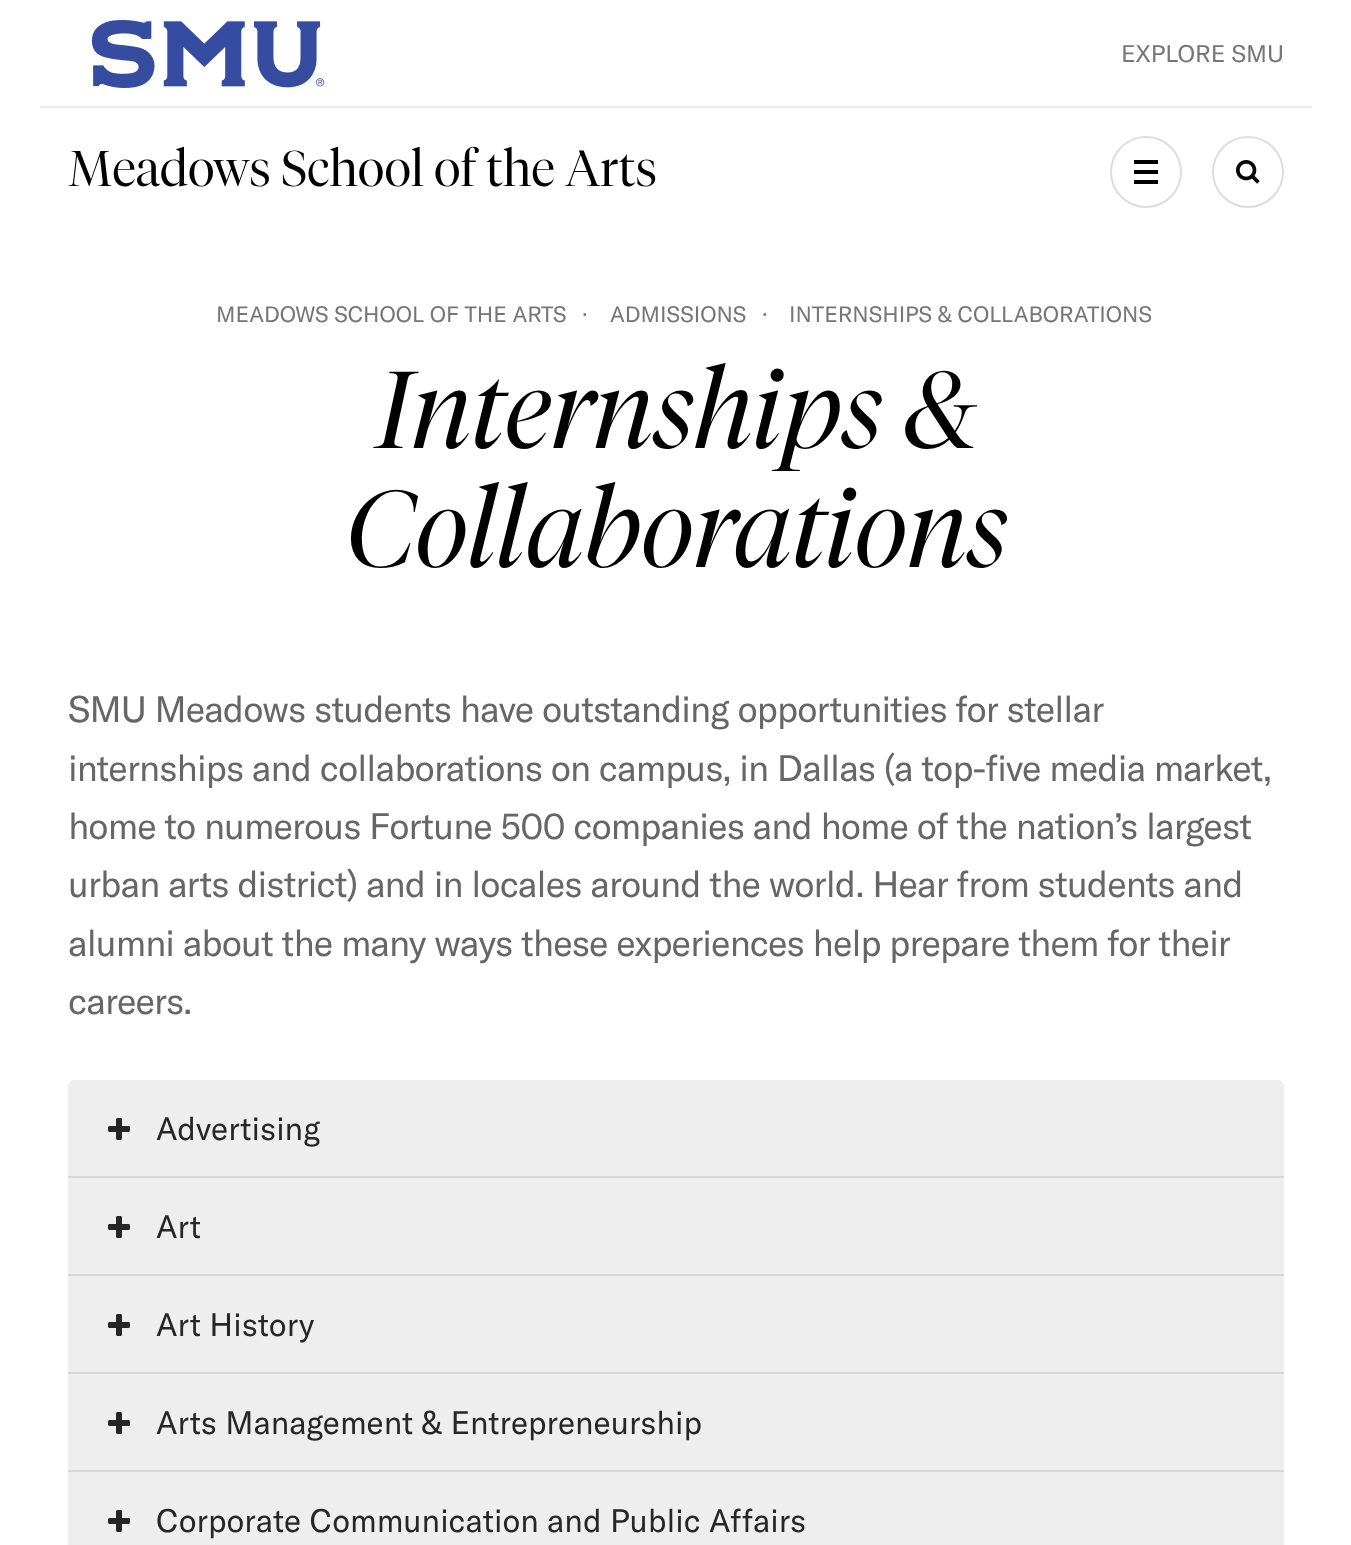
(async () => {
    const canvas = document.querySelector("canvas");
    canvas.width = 1351;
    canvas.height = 1545;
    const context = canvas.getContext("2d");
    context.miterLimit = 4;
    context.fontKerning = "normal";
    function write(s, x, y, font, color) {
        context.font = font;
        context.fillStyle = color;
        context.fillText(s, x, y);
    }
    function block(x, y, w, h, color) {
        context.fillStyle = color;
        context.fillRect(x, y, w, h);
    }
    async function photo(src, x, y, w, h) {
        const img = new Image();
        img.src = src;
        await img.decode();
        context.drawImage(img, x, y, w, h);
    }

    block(0, 0, 1351, 1545, "rgb(255, 255, 255)");
    await photo("media/1.png", 91, 20, 234, 68);
    write("EXPLORE SMU", 1121, 62, "23.75px GT America", "rgb(118, 118, 118)");
    block(40, 106, 1272, 2, "rgb(235, 235, 235)");
    write("Meadows School of the Arts", 68, 186, "300 50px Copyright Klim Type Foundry", "rgb(0, 0, 0)");
    context.beginPath();
    context.arc(1146, 172, 35, 0, Math.PI * 2);
    context.strokeStyle = "rgb(221, 221, 221)";
    context.lineWidth = 2;
    context.stroke();
    await photo("media/2.png", 1134, 160, 24, 24);
    context.beginPath();
    context.arc(1248, 172, 35, 0, Math.PI * 2);
    context.stroke();
    await photo("media/3.png", 1236, 160, 24, 24);
    write("MEADOWS SCHOOL OF THE ARTS", 216, 322, "22px GT America", "rgb(118, 118, 118)");
    write("·", 582, 322, "22px GT America", "rgb(108, 117, 125)");
    write("ADMISSIONS", 610, 322, "22px GT America", "rgb(118, 118, 118)");
    write("·", 762, 322, "22px GT America", "rgb(108, 117, 125)");
    write("INTERNSHIPS & COLLABORATIONS", 789, 322, "22px GT America", "rgb(118, 118, 118)");
    write("Internships &", 376, 448, "italic 300 108.5px Copyright Klim Type Foundry", "rgb(0, 0, 0)");
    write("Collaborations", 346, 567, "italic 300 108.5px Copyright Klim Type Foundry", "rgb(0, 0, 0)");
    context.letterSpacing = "-0.9px";
    write("SMU Meadows students have outstanding opportunities for stellar", 68, 722, "36.4px GT America", "rgb(102, 102, 102)");
    write("internships and collaborations on campus, in Dallas (a top-five media market,", 68, 781, "36.4px GT America", "rgb(102, 102, 102)");
    write("home to numerous Fortune 500 companies and home of the nation’s largest", 68, 839, "36.4px GT America", "rgb(102, 102, 102)");
    write("urban arts district) and in locales around the world. Hear from students and", 68, 897, "36.4px GT America", "rgb(102, 102, 102)");
    write("alumni about the many ways these experiences help prepare them for their", 68, 956, "36.4px GT America", "rgb(102, 102, 102)");
    write("careers.", 68, 1014, "36.4px GT America", "rgb(102, 102, 102)");
    context.fillStyle = "rgb(238, 238, 238)";
    context.beginPath();
    context.roundRect(68, 1080, 1216, 98, [6, 6, 0, 0]);
    context.fill();
    block(68, 1176, 1216, 2, "rgb(216, 216, 216)");
    await photo("media/4.png", 108, 1118, 22, 22);
    context.letterSpacing = "0px";
    write("Advertising", 156, 1140, "32px GT America", "rgb(38, 38, 38)");
    block(68, 1178, 1216, 96, "rgb(238, 238, 238)");
    block(68, 1274, 1216, 2, "rgb(216, 216, 216)");
    await photo("media/4.png", 108, 1216, 22, 22);
    write("Art", 156, 1238, "32px GT America", "rgb(38, 38, 38)");
    block(68, 1276, 1216, 96, "rgb(238, 238, 238)");
    block(68, 1372, 1216, 2, "rgb(216, 216, 216)");
    await photo("media/4.png", 108, 1314, 22, 22);
    write("Art History", 156, 1336, "32px GT America", "rgb(38, 38, 38)");
    block(68, 1374, 1216, 96, "rgb(238, 238, 238)");
    block(68, 1470, 1216, 2, "rgb(216, 216, 216)");
    await photo("media/4.png", 108, 1412, 22, 22);
    write("Arts Management & Entrepreneurship", 156, 1434, "32px GT America", "rgb(38, 38, 38)");
    block(68, 1472, 1216, 73, "rgb(238, 238, 238)");
    await photo("media/4.png", 108, 1510, 22, 22);
    write("Corporate Communication and Public Affairs", 156, 1532, "32px GT America", "rgb(38, 38, 38)");
})();
